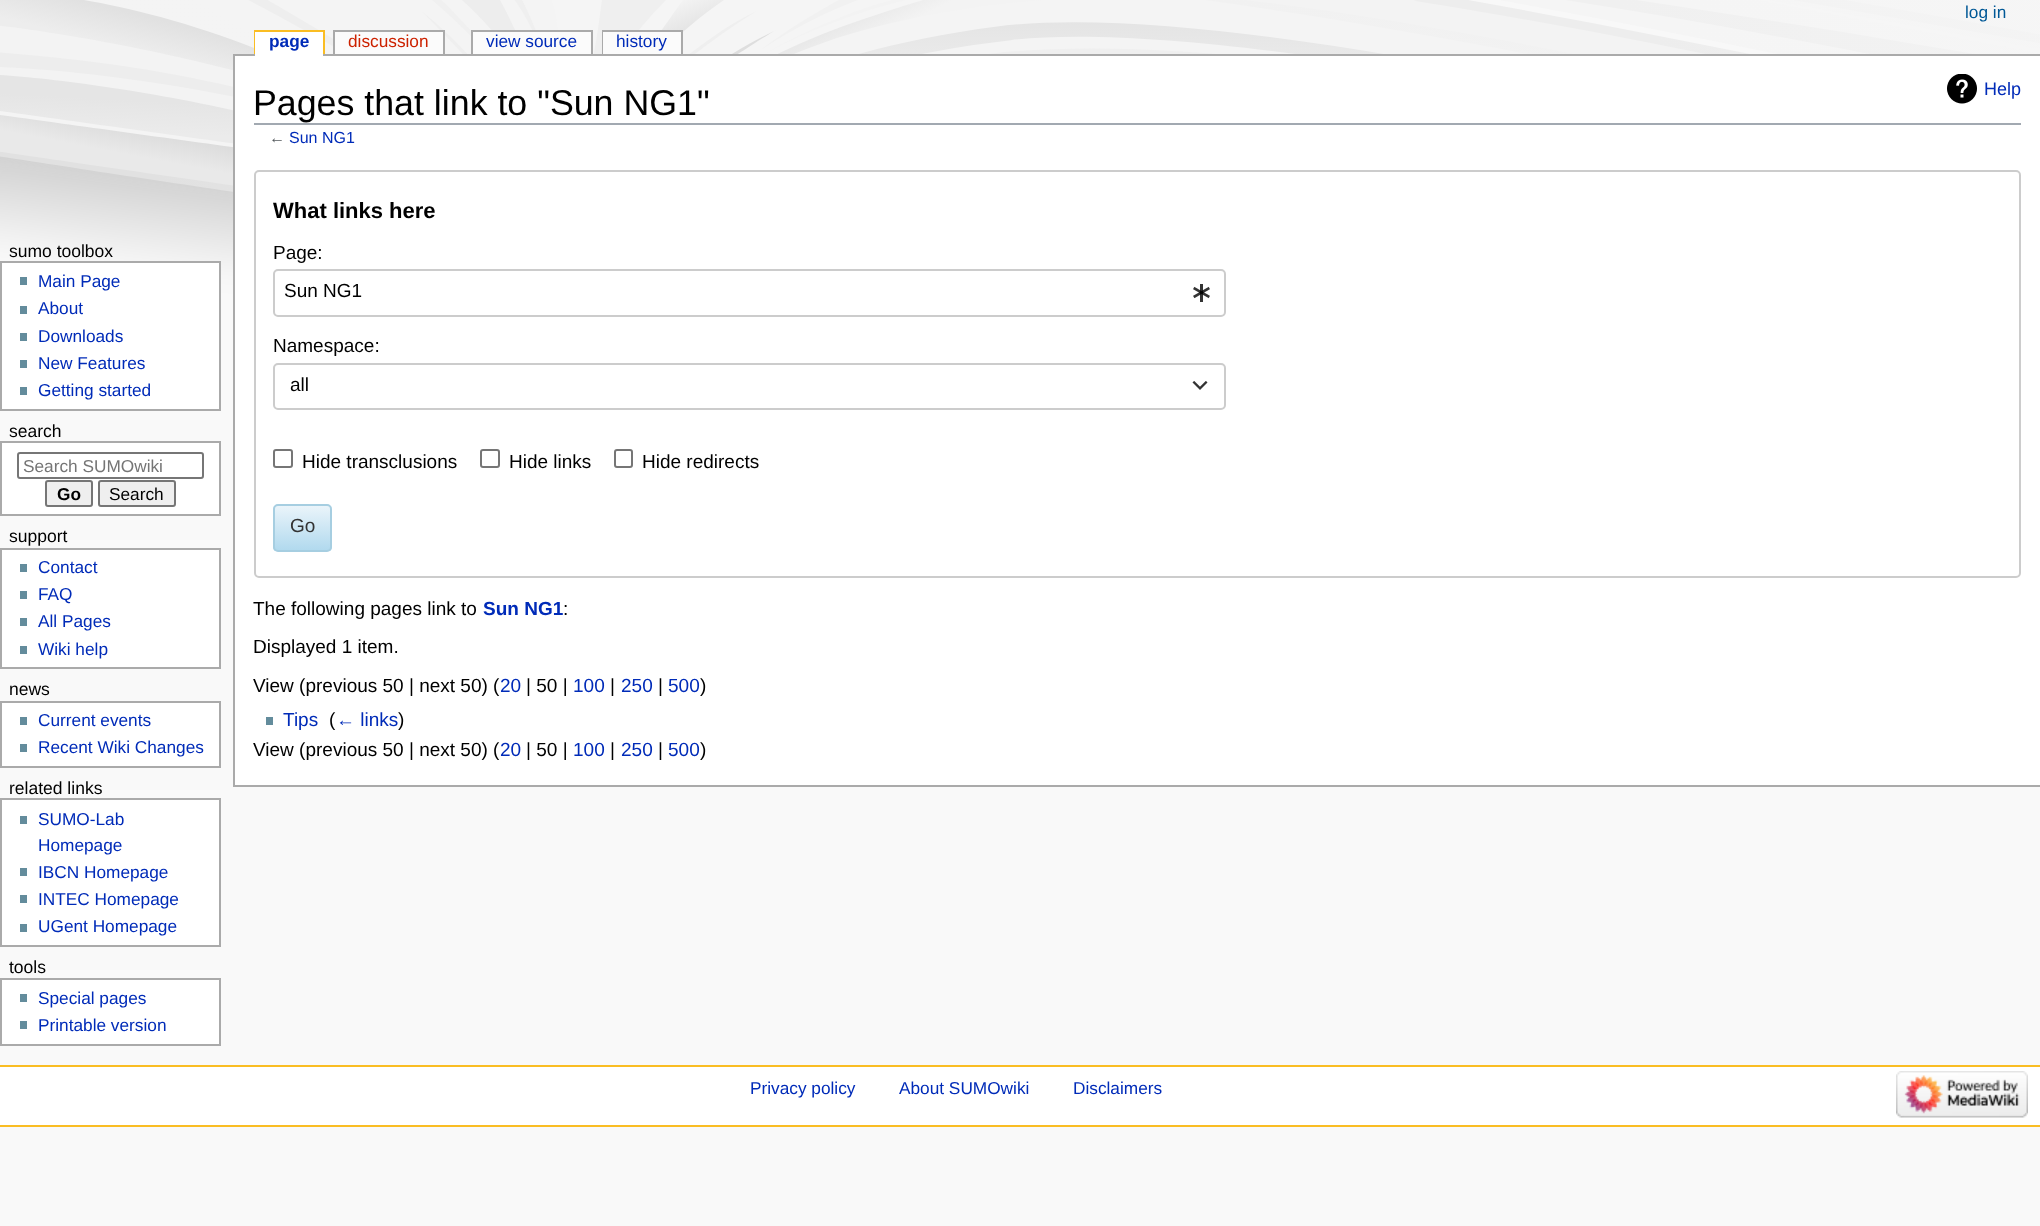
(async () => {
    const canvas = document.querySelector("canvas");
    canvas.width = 2040;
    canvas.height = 1226;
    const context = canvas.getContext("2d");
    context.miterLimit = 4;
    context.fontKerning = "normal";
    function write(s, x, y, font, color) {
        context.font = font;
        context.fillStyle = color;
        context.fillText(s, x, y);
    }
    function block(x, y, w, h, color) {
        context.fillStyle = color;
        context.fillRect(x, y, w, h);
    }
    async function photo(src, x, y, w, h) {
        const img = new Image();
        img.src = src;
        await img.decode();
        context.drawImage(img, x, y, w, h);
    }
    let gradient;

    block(0, 0, 2040, 1226, "rgb(249, 249, 249)");
    await photo("media/1.png", 0, 0, 2040, 315);
    write("log in", 1965, 18, "17.25px Liberation Sans", "rgb(0, 88, 150)");
    block(254, 30, 70, 2, "rgb(250, 189, 35)");
    block(254, 30, 2, 24, "rgb(250, 189, 35)");
    block(233, 54, 1807, 2, "rgb(170, 170, 170)");
    block(255, 32, 68, 24, "rgb(255, 255, 255)");
    write("page", 269, 47, "bold 17.25px Liberation Sans", "rgb(0, 43, 184)");
    block(323, 30, 2, 24, "rgb(250, 189, 35)");
    block(335, 32, 108, 22, "rgb(251, 251, 251)");
    write("discussion", 348, 47, "17.25px Liberation Sans", "rgb(204, 34, 0)");
    block(333, 30, 111, 2, "rgb(170, 170, 170)");
    block(443, 30, 2, 24, "rgb(170, 170, 170)");
    block(333, 30, 2, 24, "rgb(170, 170, 170)");
    block(473, 32, 118, 22, "rgb(251, 251, 251)");
    write("view source", 486, 47, "17.25px Liberation Sans", "rgb(0, 43, 184)");
    block(471, 30, 122, 2, "rgb(170, 170, 170)");
    block(591, 30, 2, 24, "rgb(170, 170, 170)");
    block(471, 30, 2, 24, "rgb(170, 170, 170)");
    block(602, 30, 81, 2, "rgb(170, 170, 170)");
    block(602, 30, 2, 24, "rgb(170, 170, 170)");
    block(603, 32, 78, 22, "rgb(251, 251, 251)");
    write("history", 616, 47, "17.25px Liberation Sans", "rgb(0, 43, 184)");
    block(681, 30, 2, 24, "rgb(170, 170, 170)");
    write("sumo toolbox", 9, 257, "17.5px Liberation Sans", "rgb(0, 0, 0)");
    context.fillStyle = "rgb(255, 255, 255)";
    context.beginPath();
    context.rect(1, 262, 219, 148);
    context.fill();
    context.strokeStyle = "rgb(170, 170, 170)";
    context.lineWidth = 2;
    context.stroke();
    block(20, 277, 7, 8, "rgb(99, 140, 156)");
    write("Main Page", 38, 287, "17.25px Liberation Sans", "rgb(0, 43, 184)");
    block(20, 306, 7, 8, "rgb(99, 140, 156)");
    write("About", 38, 314, "17.25px Liberation Sans", "rgb(0, 43, 184)");
    block(20, 333, 7, 8, "rgb(99, 140, 156)");
    write("Downloads", 38, 342, "17.25px Liberation Sans", "rgb(0, 43, 184)");
    block(20, 360, 7, 8, "rgb(99, 140, 156)");
    write("New Features", 38, 369, "17.25px Liberation Sans", "rgb(0, 43, 184)");
    block(20, 387, 7, 8, "rgb(99, 140, 156)");
    write("Getting started", 38, 396, "17.25px Liberation Sans", "rgb(0, 43, 184)");
    write("search", 9, 437, "17.5px Liberation Sans", "rgb(0, 0, 0)");
    context.fillStyle = "rgb(255, 255, 255)";
    context.beginPath();
    context.rect(1, 442, 219, 73);
    context.fill();
    context.stroke();
    context.beginPath();
    context.roundRect(18, 453, 185, 25, 2);
    context.strokeStyle = "rgb(118, 118, 118)";
    context.stroke();
    write("Search SUMOwiki", 23, 472, "17.25px Liberation Sans", "rgb(117, 117, 117)");
    context.fillStyle = "rgb(239, 239, 239)";
    context.beginPath();
    context.roundRect(46, 481, 46, 25, 2);
    context.fill();
    context.stroke();
    write("Go", 57, 500, "bold 17.25px Liberation Sans", "rgb(0, 0, 0)");
    context.fillStyle = "rgb(239, 239, 239)";
    context.beginPath();
    context.roundRect(99, 481, 76, 25, 2);
    context.fill();
    context.stroke();
    write("Search", 109, 500, "17.25px Liberation Sans", "rgb(0, 0, 0)");
    write("support", 9, 542, "17.5px Liberation Sans", "rgb(0, 0, 0)");
    context.fillStyle = "rgb(255, 255, 255)";
    context.beginPath();
    context.rect(1, 549, 219, 119);
    context.fill();
    context.strokeStyle = "rgb(170, 170, 170)";
    context.stroke();
    block(20, 564, 7, 8, "rgb(99, 140, 156)");
    write("Contact", 38, 573, "17.25px Liberation Sans", "rgb(0, 43, 184)");
    block(20, 591, 7, 8, "rgb(99, 140, 156)");
    write("FAQ", 38, 600, "17.25px Liberation Sans", "rgb(0, 43, 184)");
    block(20, 618, 7, 8, "rgb(99, 140, 156)");
    write("All Pages", 38, 627, "17.25px Liberation Sans", "rgb(0, 43, 184)");
    block(20, 646, 7, 8, "rgb(99, 140, 156)");
    write("Wiki help", 38, 655, "17.25px Liberation Sans", "rgb(0, 43, 184)");
    write("news", 9, 695, "17.5px Liberation Sans", "rgb(0, 0, 0)");
    context.fillStyle = "rgb(255, 255, 255)";
    context.beginPath();
    context.rect(1, 702, 219, 65);
    context.fill();
    context.stroke();
    block(20, 717, 7, 8, "rgb(99, 140, 156)");
    write("Current events", 38, 726, "17.25px Liberation Sans", "rgb(0, 43, 184)");
    block(20, 744, 7, 8, "rgb(99, 140, 156)");
    write("Recent Wiki Changes", 38, 753, "17.25px Liberation Sans", "rgb(0, 43, 184)");
    write("related links", 9, 794, "17.5px Liberation Sans", "rgb(0, 0, 0)");
    context.fillStyle = "rgb(255, 255, 255)";
    context.beginPath();
    context.rect(1, 799, 219, 147);
    context.fill();
    context.stroke();
    block(20, 816, 7, 8, "rgb(99, 140, 156)");
    write("SUMO-Lab", 38, 825, "17.25px Liberation Sans", "rgb(0, 43, 184)");
    write("Homepage", 38, 851, "17.25px Liberation Sans", "rgb(0, 43, 184)");
    block(20, 868, 7, 8, "rgb(99, 140, 156)");
    write("IBCN Homepage", 38, 878, "17.25px Liberation Sans", "rgb(0, 43, 184)");
    block(20, 895, 7, 8, "rgb(99, 140, 156)");
    write("INTEC Homepage", 38, 905, "17.25px Liberation Sans", "rgb(0, 43, 184)");
    block(20, 924, 7, 8, "rgb(99, 140, 156)");
    write("UGent Homepage", 38, 932, "17.25px Liberation Sans", "rgb(0, 43, 184)");
    write("tools", 9, 973, "17.5px Liberation Sans", "rgb(0, 0, 0)");
    context.fillStyle = "rgb(255, 255, 255)";
    context.beginPath();
    context.rect(1, 979, 219, 66);
    context.fill();
    context.stroke();
    block(20, 994, 7, 8, "rgb(99, 140, 156)");
    write("Special pages", 38, 1004, "17.25px Liberation Sans", "rgb(0, 43, 184)");
    block(20, 1021, 7, 8, "rgb(99, 140, 156)");
    write("Printable version", 38, 1031, "17.25px Liberation Sans", "rgb(0, 43, 184)");
    block(235, 56, 1805, 729, "rgb(255, 255, 255)");
    block(233, 785, 1807, 2, "rgb(170, 170, 170)");
    block(233, 54, 2, 732, "rgb(170, 170, 170)");
    block(254, 123, 1767, 2, "rgb(162, 169, 177)");
    write("Pages that link to \"Sun NG1\"", 253, 115, "35.75px Liberation Sans", "rgb(0, 0, 0)");
    await photo("media/2.png", 1947, 74, 30, 30);
    write("Help", 1984, 95, "18px Liberation Sans", "rgb(0, 43, 184)");
    write("←", 269, 143, "16px Liberation Sans", "rgb(84, 89, 93)");
    write("Sun NG1", 289, 143, "16px Liberation Sans", "rgb(0, 43, 184)");
    context.beginPath();
    context.roundRect(255, 171, 1765, 406, 4);
    context.strokeStyle = "rgb(204, 204, 204)";
    context.stroke();
    write("What links here", 273, 218, "bold 22px Liberation Sans", "rgb(0, 0, 0)");
    write("Page:", 273, 259, "19px Liberation Sans", "rgb(0, 0, 0)");
    context.beginPath();
    context.roundRect(274, 270, 951, 46, 4);
    context.stroke();
    write("Sun NG1", 284, 297, "19px Liberation Sans", "rgb(0, 0, 0)");
    await photo("media/3.png", 1193, 284, 17, 18);
    write("Namespace:", 273, 352, "19px Liberation Sans", "rgb(0, 0, 0)");
    context.beginPath();
    context.roundRect(274, 364, 951, 45, 4);
    context.stroke();
    write("all", 290, 391, "19px Liberation Sans", "rgb(0, 0, 0)");
    await photo("media/4.png", 1192, 381, 16, 9);
    context.beginPath();
    context.roundRect(274, 450, 18, 17, 2);
    context.strokeStyle = "rgb(118, 118, 118)";
    context.stroke();
    write("Hide transclusions", 302, 468, "19px Liberation Sans", "rgb(0, 0, 0)");
    context.beginPath();
    context.roundRect(481, 450, 18, 17, 2);
    context.stroke();
    write("Hide links", 509, 468, "19px Liberation Sans", "rgb(0, 0, 0)");
    context.beginPath();
    context.roundRect(615, 450, 17, 17, 2);
    context.stroke();
    write("Hide redirects", 642, 468, "19px Liberation Sans", "rgb(0, 0, 0)");
    context.save();
    context.beginPath();
    context.roundRect(273, 504, 59, 48, 5);
    context.clip();
    gradient = context.createLinearGradient(302, 506, 302, 551);
    gradient.addColorStop(0, "rgb(234, 244, 250)");
    gradient.addColorStop(1, "rgb(176, 217, 238)");
    context.fillStyle = gradient;
    context.fillRect(273, 506, 59, 45);
    context.restore();
    context.beginPath();
    context.roundRect(274, 505, 57, 46, 4);
    context.strokeStyle = "rgb(166, 206, 225)";
    context.stroke();
    write("Go", 290, 532, "19px Liberation Sans", "rgb(51, 51, 51)");
    write("The following pages link to", 253, 615, "19px Liberation Sans", "rgb(0, 0, 0)");
    write("Sun NG1", 483, 615, "bold 19px Liberation Sans", "rgb(0, 43, 184)");
    write(":", 563, 615, "19px Liberation Sans", "rgb(0, 0, 0)");
    write("Displayed 1 item.", 253, 653, "19px Liberation Sans", "rgb(0, 0, 0)");
    write("View (previous 50 | next 50) (", 253, 692, "19px Liberation Sans", "rgb(0, 0, 0)");
    write("20", 500, 692, "19px Liberation Sans", "rgb(0, 43, 184)");
    write("| 50 |", 526, 692, "19px Liberation Sans", "rgb(0, 0, 0)");
    write("100", 573, 692, "19px Liberation Sans", "rgb(0, 43, 184)");
    write("|", 610, 692, "19px Liberation Sans", "rgb(0, 0, 0)");
    write("250", 621, 692, "19px Liberation Sans", "rgb(0, 43, 184)");
    write("|", 658, 692, "19px Liberation Sans", "rgb(0, 0, 0)");
    write("500", 668, 692, "19px Liberation Sans", "rgb(0, 43, 184)");
    write(")", 700, 692, "19px Liberation Sans", "rgb(0, 0, 0)");
    block(266, 717, 7, 8, "rgb(99, 140, 156)");
    write("Tips", 283, 726, "19px Liberation Sans", "rgb(0, 43, 184)");
    write("(", 329, 726, "19px Liberation Sans", "rgb(0, 0, 0)");
    write("← links", 336, 726, "19px Liberation Sans", "rgb(0, 43, 184)");
    write(")", 398, 726, "19px Liberation Sans", "rgb(0, 0, 0)");
    write("View (previous 50 | next 50) (", 253, 756, "19px Liberation Sans", "rgb(0, 0, 0)");
    write("20", 500, 756, "19px Liberation Sans", "rgb(0, 43, 184)");
    write("| 50 |", 526, 756, "19px Liberation Sans", "rgb(0, 0, 0)");
    write("100", 573, 756, "19px Liberation Sans", "rgb(0, 43, 184)");
    write("|", 610, 756, "19px Liberation Sans", "rgb(0, 0, 0)");
    write("250", 621, 756, "19px Liberation Sans", "rgb(0, 43, 184)");
    write("|", 658, 756, "19px Liberation Sans", "rgb(0, 0, 0)");
    write("500", 668, 756, "19px Liberation Sans", "rgb(0, 43, 184)");
    write(")", 700, 756, "19px Liberation Sans", "rgb(0, 0, 0)");
    block(0, 1067, 2040, 58, "rgb(255, 255, 255)");
    block(0, 1065, 2040, 2, "rgb(250, 189, 35)");
    block(0, 1125, 2040, 2, "rgb(250, 189, 35)");
    write("Privacy policy", 750, 1094, "17.25px Liberation Sans", "rgb(0, 43, 184)");
    write("About SUMOwiki", 899, 1094, "17.25px Liberation Sans", "rgb(0, 43, 184)");
    write("Disclaimers", 1073, 1094, "17.25px Liberation Sans", "rgb(0, 43, 184)");
    await photo("media/5.png", 1896, 1071, 132, 47);
})();
